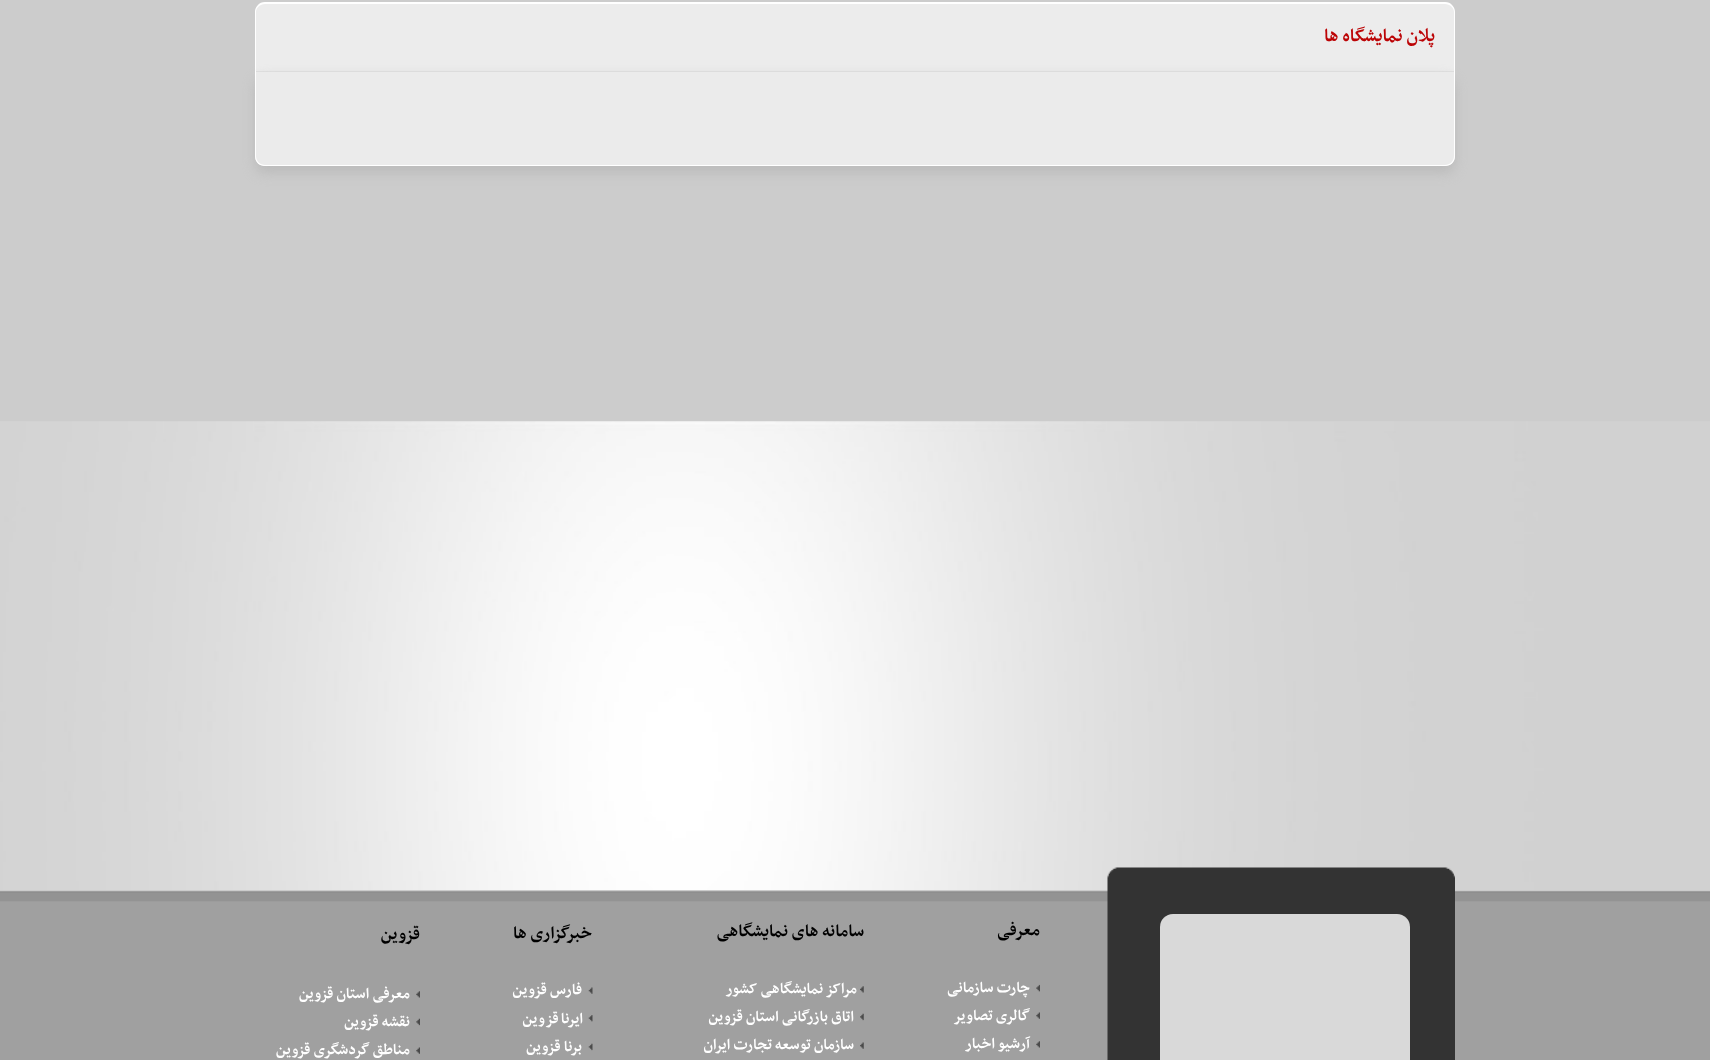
(async () => {
    const canvas = document.querySelector("canvas");
    canvas.width = 1710;
    canvas.height = 1060;
    const context = canvas.getContext("2d");
    context.miterLimit = 4;
    context.fontKerning = "normal";
    function write(s, x, y, font, color) {
        context.font = font;
        context.fillStyle = color;
        context.fillText(s, x, y);
    }
    function block(x, y, w, h, color) {
        context.fillStyle = color;
        context.fillRect(x, y, w, h);
    }
    function card(x, y, w, h, r, color) {
        context.fillStyle = color;
        context.beginPath();
        context.roundRect(x, y, w, h, r);
        context.fill();
    }
    async function photo(src, x, y, w, h) {
        const img = new Image();
        img.src = src;
        await img.decode();
        context.drawImage(img, x, y, w, h);
    }

    block(0, 0, 1710, 1060, "rgb(204, 204, 204)");
    await photo("media/1.png", 0, 421, 1710, 469);
    await photo("media/2.png", 0, 890, 1710, 170);
    context.fillStyle = "rgb(236, 236, 236)";
    context.beginPath();
    context.roundRect(255, 3, 1200, 68, [10, 10, 0, 0]);
    context.fill();
    context.fillStyle = "rgb(255, 255, 255)";
    context.beginPath();
    context.moveTo(265, 2);
    context.lineTo(1445, 2);
    context.bezierCurveTo(1451, 2, 1455, 7, 1455, 12);
    context.lineTo(1455, 71);
    context.lineTo(255, 71);
    context.lineTo(255, 12);
    context.bezierCurveTo(255, 7, 259, 2, 265, 2);
    context.closePath();
    context.moveTo(265, 4);
    context.lineTo(1445, 4);
    context.bezierCurveTo(1450, 4, 1454, 8, 1454, 12);
    context.lineTo(1454, 71);
    context.lineTo(256, 71);
    context.lineTo(256, 12);
    context.bezierCurveTo(256, 8, 260, 4, 265, 4);
    context.closePath();
    context.fill("evenodd");
    context.direction = "rtl";
    write("پلان نمایشگاه ها", 1435, 41, "bold 21.25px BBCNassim", "rgb(188, 4, 6)");
    context.fillStyle = "rgb(187, 187, 187)";
    context.filter = "blur(6px)";
    context.beginPath();
    context.roundRect(255, 78, 1200, 95, 10);
    context.fill();
    context.filter = "none";
    await photo("media/3.png", 255, 71, 1200, 95);
    context.fillStyle = "rgb(255, 255, 255)";
    context.beginPath();
    context.moveTo(255, 71);
    context.lineTo(1455, 71);
    context.lineTo(1455, 156);
    context.bezierCurveTo(1455, 162, 1451, 166, 1445, 166);
    context.lineTo(265, 166);
    context.bezierCurveTo(259, 166, 255, 162, 255, 156);
    context.closePath();
    context.moveTo(256, 71);
    context.lineTo(1454, 71);
    context.lineTo(1454, 156);
    context.bezierCurveTo(1454, 161, 1450, 165, 1445, 165);
    context.lineTo(265, 165);
    context.bezierCurveTo(260, 165, 256, 161, 256, 156);
    context.closePath();
    context.fill("evenodd");
    await photo("media/4.png", 1107, 867, 348, 193);
    card(1160, 914, 250, 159, 13, "rgb(217, 217, 217)");
    write("معرفی", 1040, 935, "bold 20px BBCNassim", "rgb(0, 0, 0)");
    await photo("media/5.png", 1036, 984, 4, 8);
    write("چارت سازمانی", 1030, 992, "bold 17.5px BBCNassim", "rgb(255, 255, 255)");
    await photo("media/6.png", 1036, 1012, 4, 7);
    write("گالری تصاویر", 1030, 1020, "bold 17.5px BBCNassim", "rgb(255, 255, 255)");
    await photo("media/7.png", 1036, 1041, 4, 7);
    write("آرشیو اخبار", 1030, 1048, "bold 17.5px BBCNassim", "rgb(255, 255, 255)");
    write("سامانه های نمایشگاهی", 864, 936, "bold 20px BBCNassim", "rgb(0, 0, 0)");
    await photo("media/8.png", 860, 986, 4, 7);
    write("مراکز نمایشگاهی کشور", 857, 993, "bold 17.5px BBCNassim", "rgb(255, 255, 255)");
    await photo("media/9.png", 860, 1013, 4, 8);
    write("اتاق بازرگانی استان قزوین", 854, 1021, "bold 17.5px BBCNassim", "rgb(255, 255, 255)");
    await photo("media/10.png", 860, 1042, 4, 7);
    write("سازمان توسعه تجارت ایران", 854, 1049, "bold 17.5px BBCNassim", "rgb(255, 255, 255)");
    write("خبرگزاری ها", 592, 938, "bold 20px BBCNassim", "rgb(0, 0, 0)");
    await photo("media/11.png", 588, 987, 5, 7);
    write("فارس قزوین", 582, 994, "bold 17.5px BBCNassim", "rgb(255, 255, 255)");
    await photo("media/12.png", 588, 1015, 5, 7);
    context.wordSpacing = "-1px";
    write("ایرنا قز", 583, 1023, "bold 17.5px BBCNassim", "rgb(255, 255, 255)");
    context.wordSpacing = "0px";
    write("وین", 545, 1023, "bold 17.5px BBCNassim", "rgb(255, 255, 255)");
    await photo("media/13.png", 588, 1043, 5, 8);
    write("برنا قزوین", 582, 1051, "bold 17.5px BBCNassim", "rgb(255, 255, 255)");
    write("قزوین", 420, 939, "bold 20px BBCNassim", "rgb(0, 0, 0)");
    await photo("media/7.png", 416, 991, 4, 7);
    write("معرفی استان قزوین", 410, 998, "bold 17.5px BBCNassim", "rgb(255, 255, 255)");
    await photo("media/14.png", 416, 1018, 4, 8);
    write("نقشه قزوین", 410, 1026, "bold 17.5px BBCNassim", "rgb(255, 255, 255)");
    await photo("media/6.png", 416, 1047, 4, 7);
    write("مناطق گردشگری قزوین", 410, 1054, "bold 17.5px BBCNassim", "rgb(255, 255, 255)");
})();
